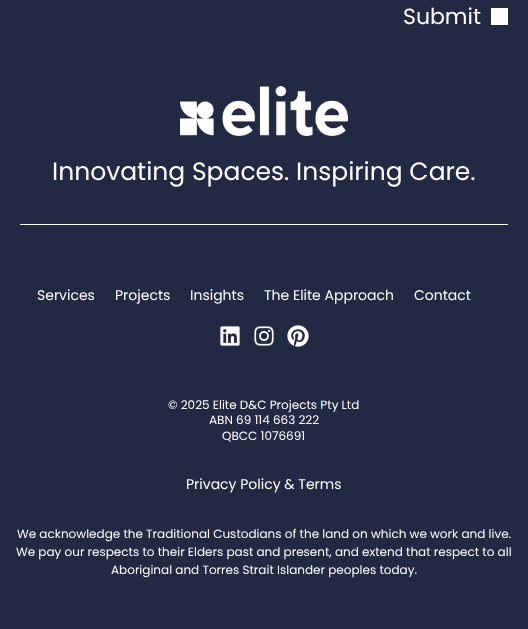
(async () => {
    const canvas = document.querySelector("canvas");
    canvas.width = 528;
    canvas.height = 629;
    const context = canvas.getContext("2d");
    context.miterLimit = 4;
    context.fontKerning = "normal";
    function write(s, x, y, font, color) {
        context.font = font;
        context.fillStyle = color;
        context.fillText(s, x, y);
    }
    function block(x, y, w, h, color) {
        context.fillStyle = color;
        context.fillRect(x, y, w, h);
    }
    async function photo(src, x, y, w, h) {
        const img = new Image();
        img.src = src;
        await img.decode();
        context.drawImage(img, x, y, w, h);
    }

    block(0, 0, 528, 629, "rgb(34, 41, 66)");
    write("Submit", 403, 24, "22px Poppins", "rgb(255, 255, 255)");
    block(491, 8, 17, 17, "rgb(255, 255, 255)");
    await photo("media/1.png", 180, 86, 168, 50);
    write("Innovating Spaces. Inspiring Care.", 52, 180, "25px Poppins", "rgb(255, 255, 255)");
    block(20, 224, 488, 1, "rgb(255, 255, 255)");
    write("Services", 37, 300, "14px Poppins", "rgb(255, 255, 255)");
    write("Projects", 115, 300, "14px Poppins", "rgb(255, 255, 255)");
    write("Insights", 190, 300, "14px Poppins", "rgb(255, 255, 255)");
    write("The Elite Approach", 264, 300, "14px Poppins", "rgb(255, 255, 255)");
    write("Contact", 414, 300, "14px Poppins", "rgb(255, 255, 255)");
    await photo("media/2.png", 220, 326, 20, 20);
    await photo("media/3.png", 254, 326, 20, 20);
    await photo("media/4.png", 287, 325, 22, 22);
    write("© 2025 Elite D&C Projects Pty Ltd", 168, 409, "12px Poppins", "rgb(255, 255, 255)");
    write("ABN 69 114 663 222", 209, 424, "12px Poppins", "rgb(255, 255, 255)");
    write("QBCC 1076691", 222, 440, "12px Poppins", "rgb(255, 255, 255)");
    write("Privacy Policy & Terms", 186, 489, "14px Poppins", "rgb(255, 255, 255)");
    write("We acknowledge the Traditional Custodians of the land on which we work and live.", 17, 538, "12px Poppins", "rgb(255, 255, 255)");
    write("We pay our respects to their Elders past and present, and extend that respect to all", 16, 556, "12px Poppins", "rgb(255, 255, 255)");
    write("Aboriginal and Torres Strait Islander peoples today.", 111, 574, "12px Poppins", "rgb(255, 255, 255)");
})();
